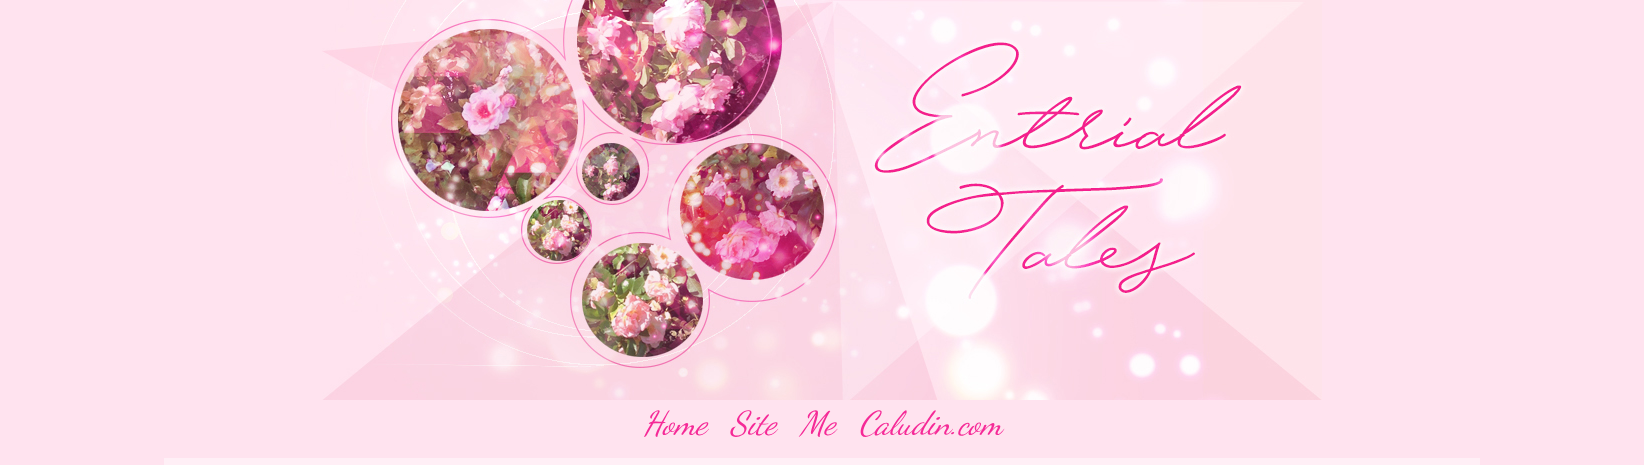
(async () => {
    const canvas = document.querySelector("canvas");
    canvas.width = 1644;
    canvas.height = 465;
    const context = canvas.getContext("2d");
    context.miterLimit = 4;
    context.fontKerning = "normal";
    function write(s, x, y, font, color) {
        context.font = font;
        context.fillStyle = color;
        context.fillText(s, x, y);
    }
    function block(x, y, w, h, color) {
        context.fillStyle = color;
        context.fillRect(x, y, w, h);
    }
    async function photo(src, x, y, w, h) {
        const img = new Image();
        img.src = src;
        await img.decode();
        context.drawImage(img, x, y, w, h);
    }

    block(0, 0, 1644, 465, "rgb(255, 227, 239)");
    await photo("media/1.png", 322, 0, 1000, 400);
    write("Home", 643, 434, "italic 33px Dancing Script", "rgb(245, 42, 151)");
    write("Site", 730, 434, "italic 33px Dancing Script", "rgb(245, 42, 151)");
    write("Me", 800, 434, "italic 33px Dancing Script", "rgb(245, 42, 151)");
    write("Caludin.com", 859, 434, "italic 33px Dancing Script", "rgb(245, 42, 151)");
    block(164, 458, 1316, 7, "rgb(255, 239, 246)");
})();
